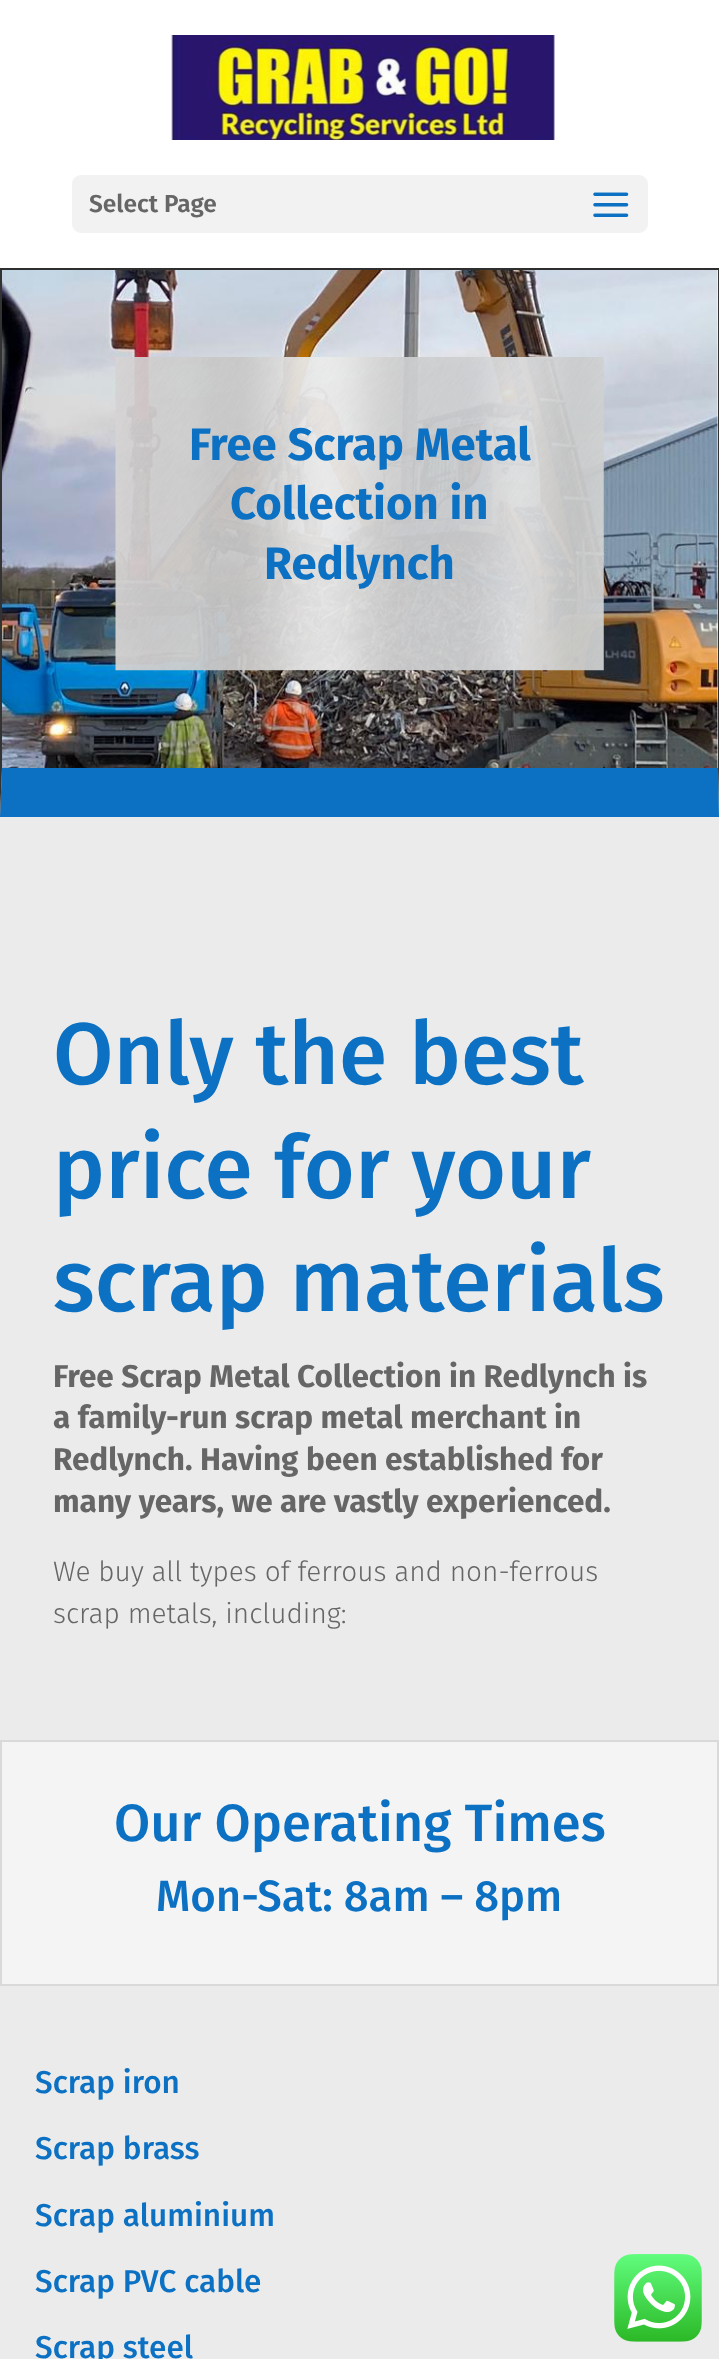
(async () => {
    const canvas = document.querySelector("canvas");
    canvas.width = 719;
    canvas.height = 2359;
    const context = canvas.getContext("2d");
    context.miterLimit = 4;
    context.fontKerning = "normal";
    function write(s, x, y, font, color) {
        context.font = font;
        context.fillStyle = color;
        context.fillText(s, x, y);
    }
    function block(x, y, w, h, color) {
        context.fillStyle = color;
        context.fillRect(x, y, w, h);
    }
    function card(x, y, w, h, r, color) {
        context.fillStyle = color;
        context.beginPath();
        context.roundRect(x, y, w, h, r);
        context.fill();
    }
    async function photo(src, x, y, w, h) {
        const img = new Image();
        img.src = src;
        await img.decode();
        context.drawImage(img, x, y, w, h);
    }

    block(0, 0, 719, 2359, "rgb(255, 255, 255)");
    context.fillStyle = "rgb(51, 51, 51)";
    context.beginPath();
    context.moveTo(719, 266);
    context.lineTo(719, 817);
    context.lineTo(718, 768);
    context.lineTo(718, 270);
    context.closePath();
    context.fill();
    await photo("media/3.png", 1, 270, 717, 522);
    context.fillStyle = "rgb(12, 113, 195)";
    context.beginPath();
    context.moveTo(719, 817);
    context.lineTo(0, 817);
    context.lineTo(2, 768);
    context.lineTo(718, 768);
    context.closePath();
    context.fill();
    context.fillStyle = "rgb(51, 51, 51)";
    context.beginPath();
    context.moveTo(0, 817);
    context.lineTo(0, 266);
    context.lineTo(2, 270);
    context.lineTo(2, 768);
    context.closePath();
    context.fill();
    block(0, 268, 719, 2, "rgb(46, 46, 46)");
    block(0, 266, 719, 2, "rgb(255, 255, 255)");
    await photo("media/1.png", 170, 35, 385, 105);
    card(72, 175, 576, 58, 9, "rgb(242, 242, 242)");
    write("Select Page", 89, 212, "600 24.5px Fira Sans", "rgb(102, 102, 102)");
    await photo("media/2.png", 593, 192, 36, 25);
    await photo("media/4.png", 115, 357, 489, 314);
    write("Free Scrap Metal", 189, 460, "bold 45.5px Fira Sans", "rgb(12, 113, 195)");
    write("Collection in", 230, 519, "bold 45.5px Fira Sans", "rgb(12, 113, 195)");
    write("Redlynch", 264, 579, "bold 45.5px Fira Sans", "rgb(12, 113, 195)");
    block(0, 817, 719, 1542, "rgb(235, 235, 235)");
    write("Only the best", 53, 1084, "500 87.5px Fira Sans", "rgb(12, 113, 195)");
    write("price for your", 53, 1198, "500 87.5px Fira Sans", "rgb(12, 113, 195)");
    write("scrap materials", 53, 1311, "500 87.5px Fira Sans", "rgb(12, 113, 195)");
    write("Free Scrap Metal Collection in Redlynch is", 53, 1387, "bold 31.5px Fira Sans", "rgb(102, 102, 102)");
    write("a family-run scrap metal merchant in", 53, 1428, "bold 31.5px Fira Sans", "rgb(102, 102, 102)");
    write("Redlynch. Having been established for", 53, 1470, "bold 31.5px Fira Sans", "rgb(102, 102, 102)");
    write("many years, we are vastly experienced.", 53, 1512, "bold 31.5px Fira Sans", "rgb(102, 102, 102)");
    write("We buy all types of ferrous and non-ferrous", 53, 1581, "300 28px Fira Sans", "rgb(102, 102, 102)");
    write("scrap metals, including:", 53, 1623, "300 28px Fira Sans", "rgb(102, 102, 102)");
    context.fillStyle = "rgb(244, 244, 244)";
    context.beginPath();
    context.rect(1, 1741, 717, 244);
    context.fill();
    context.strokeStyle = "rgb(217, 217, 217)";
    context.lineWidth = 2;
    context.stroke();
    write("Our Operating Times", 114, 1841, "500 52.5px Fira Sans", "rgb(12, 113, 195)");
    write("Mon-Sat: 8am – 8pm", 156, 1911, "500 43.75px Fira Sans", "rgb(12, 113, 195)");
    write("Scrap iron", 35, 2093, "500 31.5px Fira Sans", "rgb(12, 113, 195)");
    write("Scrap brass", 35, 2159, "500 31.5px Fira Sans", "rgb(12, 113, 195)");
    write("Scrap aluminium", 35, 2226, "500 31.5px Fira Sans", "rgb(12, 113, 195)");
    write("Scrap PVC cable", 35, 2292, "500 31.5px Fira Sans", "rgb(12, 113, 195)");
    write("Scrap steel", 35, 2358, "500 31.5px Fira Sans", "rgb(12, 113, 195)");
    await photo("media/5.png", 614, 2254, 88, 88);
})();
